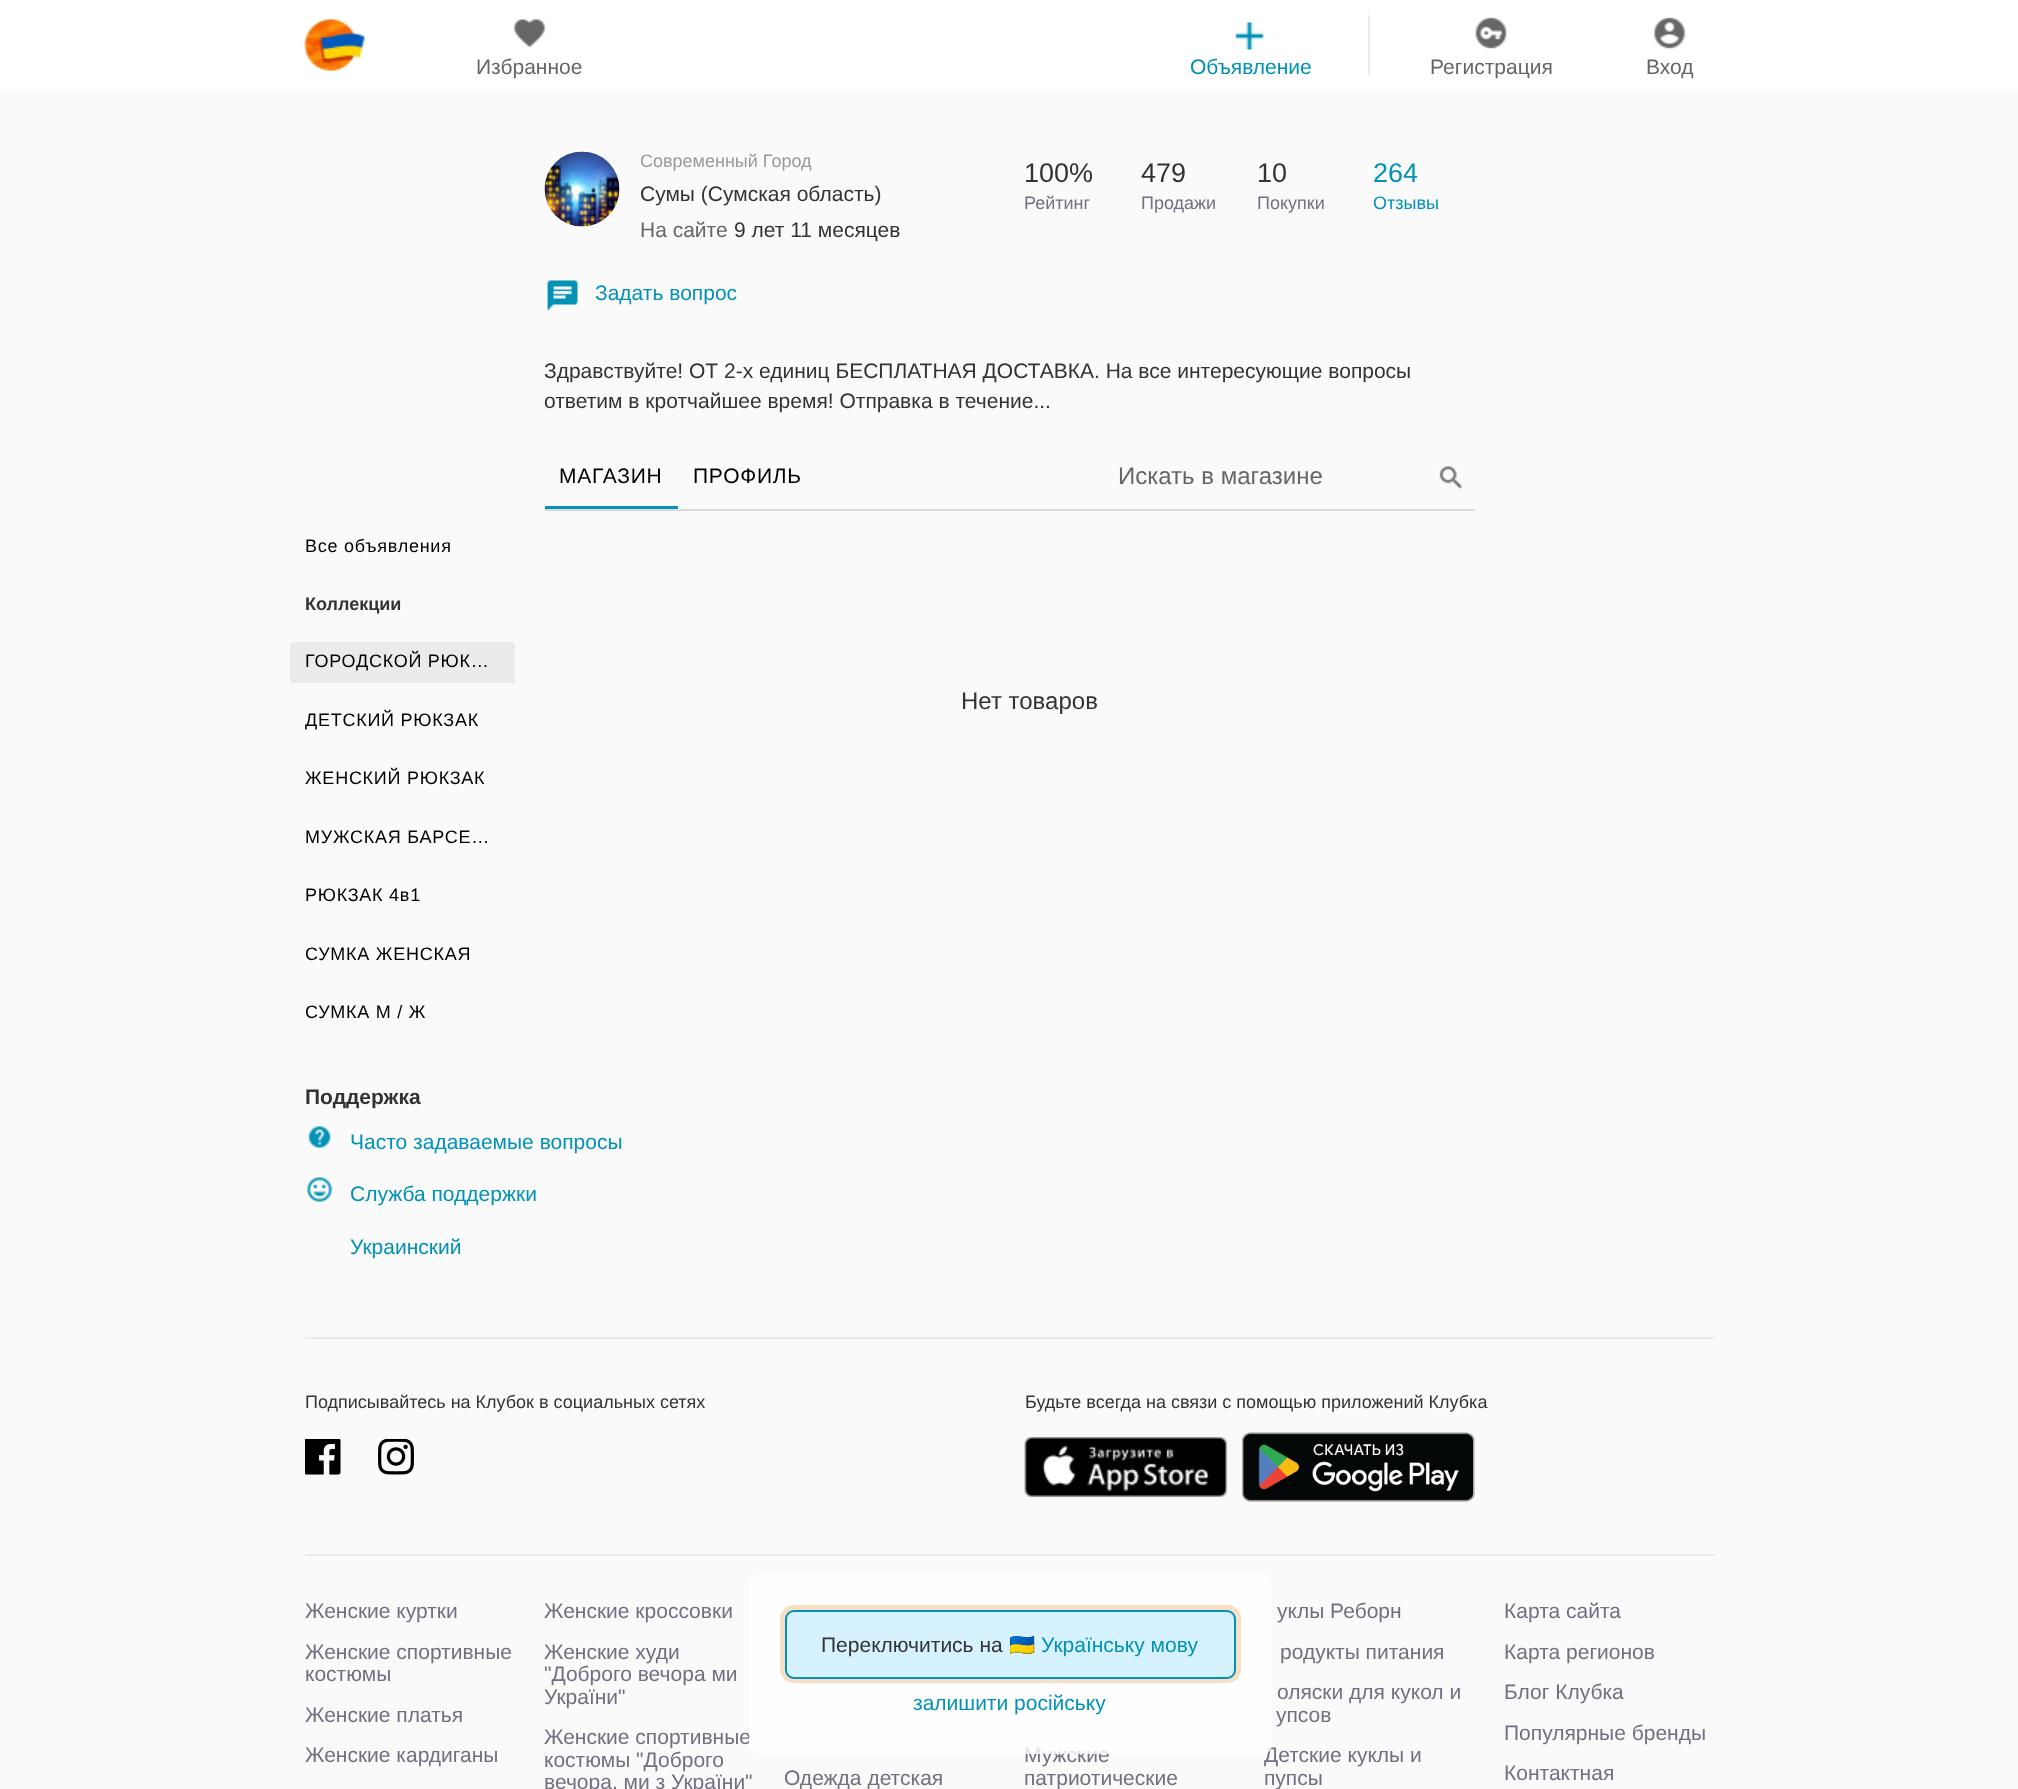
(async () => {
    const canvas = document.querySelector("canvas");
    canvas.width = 2018;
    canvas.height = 1789;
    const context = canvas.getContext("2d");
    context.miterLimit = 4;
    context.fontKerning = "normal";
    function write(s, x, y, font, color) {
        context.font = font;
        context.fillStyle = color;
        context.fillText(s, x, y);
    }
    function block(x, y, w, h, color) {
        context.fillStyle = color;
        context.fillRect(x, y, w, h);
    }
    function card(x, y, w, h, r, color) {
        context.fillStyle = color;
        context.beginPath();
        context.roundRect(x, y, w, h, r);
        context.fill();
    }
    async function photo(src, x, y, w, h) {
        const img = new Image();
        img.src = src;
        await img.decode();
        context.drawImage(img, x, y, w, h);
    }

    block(0, 0, 2018, 1789, "rgb(250, 250, 250)");
    block(0, 0, 2018, 90, "rgb(255, 255, 255)");
    await photo("media/1.png", 304, 19, 61, 52);
    await photo("media/2.png", 513, 19, 33, 29);
    write("Избранное", 476, 74, "21px Liberation Sans", "rgb(102, 102, 102)");
    await photo("media/3.png", 1235, 22, 29, 28);
    write("Объявление", 1190, 74, "21px Liberation Sans", "rgb(1, 146, 181)");
    block(1368, 15, 2, 60, "rgb(235, 235, 235)");
    await photo("media/4.png", 1475, 17, 32, 32);
    write("Регистрация", 1430, 74, "21px Liberation Sans", "rgb(102, 102, 102)");
    await photo("media/5.png", 1653, 17, 33, 32);
    write("Вход", 1646, 74, "21px Liberation Sans", "rgb(102, 102, 102)");
    block(545, 509, 930, 2, "rgb(218, 218, 218)");
    await photo("media/6.png", 544, 151, 76, 76);
    write("Современный Город", 640, 167, "18px Liberation Sans", "rgb(153, 153, 153)");
    write("Сумы (Сумская область)", 640, 201, "21px Liberation Sans", "rgb(51, 51, 51)");
    write("На сайте", 640, 237, "21px Liberation Sans", "rgb(102, 102, 102)");
    write("9 лет 11 месяцев", 734, 237, "21px Liberation Sans", "rgb(51, 51, 51)");
    write("100%", 1024, 182, "27px Liberation Sans", "rgb(51, 51, 51)");
    write("Рейтинг", 1024, 209, "18px Liberation Sans", "rgb(111, 113, 129)");
    write("479", 1141, 182, "27px Liberation Sans", "rgb(51, 51, 51)");
    write("Продажи", 1141, 209, "18px Liberation Sans", "rgb(111, 113, 129)");
    write("10", 1257, 182, "27px Liberation Sans", "rgb(51, 51, 51)");
    write("Покупки", 1257, 209, "18px Liberation Sans", "rgb(111, 113, 129)");
    write("264", 1373, 182, "27px Liberation Sans", "rgb(1, 146, 181)");
    write("Отзывы", 1373, 209, "18px Liberation Sans", "rgb(1, 146, 181)");
    await photo("media/7.png", 547, 280, 31, 31);
    write("Задать вопрос", 595, 300, "21px Liberation Sans", "rgb(1, 146, 181)");
    write("Здравствуйте! ОТ 2-х единиц БЕСПЛАТНАЯ ДОСТАВКА. На все интересующие вопросы", 544, 378, "21px Liberation Sans", "rgb(51, 51, 51)");
    write("ответим в кротчайшее время! Отправка в течение...", 544, 408, "21px Liberation Sans", "rgb(51, 51, 51)");
    block(545, 506, 133, 3, "rgb(1, 146, 181)");
    context.letterSpacing = "0.75px";
    write("МАГАЗИН", 559, 483, "21px Liberation Sans", "rgb(0, 0, 0)");
    write("ПРОФИЛЬ", 693, 483, "21px Liberation Sans", "rgb(0, 0, 0)");
    context.letterSpacing = "0px";
    write("Искать в магазине", 1118, 484, "24px Liberation Sans", "rgb(102, 102, 102)");
    await photo("media/8.png", 1439, 466, 24, 23);
    context.letterSpacing = "0.75px";
    write("Все объявления", 305, 552, "18px Liberation Sans", "rgb(0, 0, 0)");
    context.letterSpacing = "0px";
    write("Коллекции", 305, 610, "bold 18px Liberation Sans", "rgb(51, 51, 51)");
    card(290, 642, 225, 41, 3, "rgb(235, 235, 235)");
    context.letterSpacing = "0.75px";
    write("ГОРОДСКОЙ РЮК…", 305, 667, "18px Liberation Sans", "rgb(0, 0, 0)");
    write("ДЕТСКИЙ РЮКЗАК", 305, 726, "18px Liberation Sans", "rgb(0, 0, 0)");
    write("ЖЕНСКИЙ РЮКЗАК", 305, 784, "18px Liberation Sans", "rgb(0, 0, 0)");
    write("МУЖСКАЯ БАРСЕ…", 305, 843, "18px Liberation Sans", "rgb(0, 0, 0)");
    write("РЮКЗАК 4в1", 305, 901, "18px Liberation Sans", "rgb(0, 0, 0)");
    write("СУМКА ЖЕНСКАЯ", 305, 960, "18px Liberation Sans", "rgb(0, 0, 0)");
    write("СУМКА М / Ж", 305, 1018, "18px Liberation Sans", "rgb(0, 0, 0)");
    context.letterSpacing = "0px";
    write("Нет товаров", 961, 709, "24px Liberation Sans", "rgb(51, 51, 51)");
    write("Поддержка", 305, 1104, "bold 21px Liberation Sans", "rgb(51, 51, 51)");
    await photo("media/9.png", 308, 1126, 23, 22);
    write("Часто задаваемые вопросы", 350, 1149, "21px Liberation Sans", "rgb(1, 146, 181)");
    await photo("media/10.png", 307, 1177, 25, 25);
    write("Служба поддержки", 350, 1201, "21px Liberation Sans", "rgb(1, 146, 181)");
    write("Украинский", 350, 1254, "21px Liberation Sans", "rgb(1, 146, 181)");
    block(305, 1337, 1410, 2, "rgb(235, 235, 235)");
    block(305, 1554, 1410, 2, "rgb(235, 235, 235)");
    write("Подписывайтесь на Клубок в социальных сетях", 305, 1408, "18px Liberation Sans", "rgb(51, 51, 51)");
    await photo("media/11.png", 305, 1439, 36, 36);
    await photo("media/12.png", 378, 1439, 36, 36);
    write("Будьте всегда на связи с помощью приложений Клубка", 1025, 1408, "18px Liberation Sans", "rgb(51, 51, 51)");
    await photo("media/13.png", 1024, 1437, 203, 60);
    await photo("media/14.png", 1242, 1432, 233, 70);
    write("Женские куртки", 305, 1618, "21px Liberation Sans", "rgb(111, 113, 129)");
    write("Женские спортивные", 305, 1659, "21px Liberation Sans", "rgb(111, 113, 129)");
    write("костюмы", 305, 1681, "21px Liberation Sans", "rgb(111, 113, 129)");
    write("Женские платья", 305, 1722, "21px Liberation Sans", "rgb(111, 113, 129)");
    write("Женские кардиганы", 305, 1762, "21px Liberation Sans", "rgb(111, 113, 129)");
    write("Женские кроссовки", 544, 1618, "21px Liberation Sans", "rgb(111, 113, 129)");
    write("Женские худи", 544, 1659, "21px Liberation Sans", "rgb(111, 113, 129)");
    write("\"Доброго вечора ми", 544, 1681, "21px Liberation Sans", "rgb(111, 113, 129)");
    write("України\"", 544, 1704, "21px Liberation Sans", "rgb(111, 113, 129)");
    write("Женские спортивные", 544, 1744, "21px Liberation Sans", "rgb(111, 113, 129)");
    write("костюмы \"Доброго", 544, 1767, "21px Liberation Sans", "rgb(111, 113, 129)");
    write("вечора, ми з України\"", 544, 1789, "21px Liberation Sans", "rgb(111, 113, 129)");
    write("Одежда детская", 784, 1785, "21px Liberation Sans", "rgb(111, 113, 129)");
    write("Мужские", 1024, 1762, "21px Liberation Sans", "rgb(111, 113, 129)");
    write("патриотические", 1024, 1785, "21px Liberation Sans", "rgb(111, 113, 129)");
    write("уклы Реборн", 1277, 1618, "21px Liberation Sans", "rgb(111, 113, 129)");
    write("родукты питания", 1280, 1659, "21px Liberation Sans", "rgb(111, 113, 129)");
    write("оляски для кукол и", 1277, 1699, "21px Liberation Sans", "rgb(111, 113, 129)");
    write("упсов", 1276, 1722, "21px Liberation Sans", "rgb(111, 113, 129)");
    write("Детские куклы и", 1264, 1762, "21px Liberation Sans", "rgb(111, 113, 129)");
    write("пупсы", 1264, 1785, "21px Liberation Sans", "rgb(111, 113, 129)");
    write("Карта сайта", 1504, 1618, "21px Liberation Sans", "rgb(111, 113, 129)");
    write("Карта регионов", 1504, 1659, "21px Liberation Sans", "rgb(111, 113, 129)");
    write("Блог Клубка", 1504, 1699, "21px Liberation Sans", "rgb(111, 113, 129)");
    write("Популярные бренды", 1504, 1740, "21px Liberation Sans", "rgb(111, 113, 129)");
    write("Контактная", 1504, 1780, "21px Liberation Sans", "rgb(111, 113, 129)");
    card(749, 1574, 523, 180, 9, "rgba(255, 255, 255, 0.8)");
    context.beginPath();
    context.roundRect(782.5, 1607.5, 456, 73, 11.5);
    context.strokeStyle = "rgba(230, 130, 20, 0.25)";
    context.lineWidth = 5;
    context.stroke();
    context.fillStyle = "rgb(215, 242, 255)";
    context.beginPath();
    context.roundRect(786, 1611, 449, 67, 8);
    context.fill();
    context.strokeStyle = "rgb(1, 146, 181)";
    context.lineWidth = 2;
    context.stroke();
    write("Переключитись на", 821, 1652, "21px Liberation Sans", "rgb(51, 51, 51)");
    write("🇺🇦", 1009, 1652, "21px Noto Color Emoji", "rgb(51, 51, 51)");
    write("Українську мову", 1041, 1652, "21px Liberation Sans", "rgb(1, 146, 181)");
    write("залишити російську", 913, 1710, "21px Liberation Sans", "rgb(1, 146, 181)");
})();
